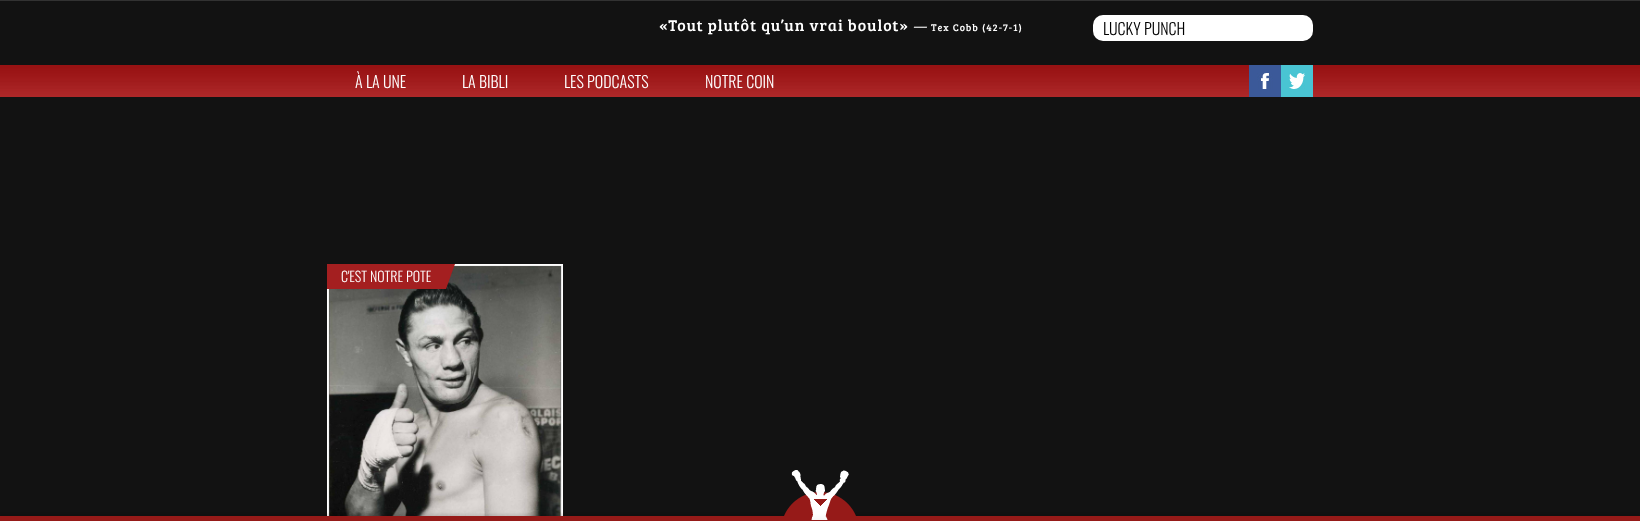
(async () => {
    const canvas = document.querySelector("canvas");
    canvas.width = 1640;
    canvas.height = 521;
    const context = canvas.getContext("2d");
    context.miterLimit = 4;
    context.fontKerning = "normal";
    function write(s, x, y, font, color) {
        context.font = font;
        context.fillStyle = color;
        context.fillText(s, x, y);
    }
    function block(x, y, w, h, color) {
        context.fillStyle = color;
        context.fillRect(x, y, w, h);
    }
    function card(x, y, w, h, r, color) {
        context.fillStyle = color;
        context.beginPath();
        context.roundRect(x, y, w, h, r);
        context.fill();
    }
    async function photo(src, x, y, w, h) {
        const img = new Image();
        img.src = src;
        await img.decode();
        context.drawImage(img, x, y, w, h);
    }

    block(0, 0, 1640, 521, "rgb(18, 18, 18)");
    block(0, 0, 1640, 1, "rgb(50, 50, 50)");
    context.letterSpacing = "1px";
    write("«Tout plutôt qu’un vrai boulot»", 659, 31, "16px Bree Serif", "rgb(255, 255, 255)");
    write("—", 913, 31, "italic 13px Bree Serif", "rgb(255, 255, 255)");
    write("Tex Cobb (42-7-1)", 931, 31, "10px Bree Serif", "rgb(255, 255, 255)");
    card(1093, 15, 220, 26, 10, "rgb(255, 255, 255)");
    context.letterSpacing = "0px";
    write("LUCKY PUNCH", 1103, 35, "300 16px Oswald", "rgb(0, 0, 0)");
    await photo("media/1.png", 0, 65, 1640, 32);
    write("À LA UNE", 355, 88, "300 16px Oswald", "rgb(255, 255, 255)");
    write("LA BIBLI", 462, 88, "300 16px Oswald", "rgb(255, 255, 255)");
    write("LES PODCASTS", 564, 88, "300 16px Oswald", "rgb(255, 255, 255)");
    write("NOTRE COIN", 705, 88, "300 16px Oswald", "rgb(255, 255, 255)");
    await photo("media/2.png", 1249, 65, 32, 32);
    await photo("media/3.png", 1281, 65, 32, 32);
    await photo("media/4.png", 327, 264, 236, 252);
    context.save();
    context.beginPath();
    context.rect(327, 264, 236, 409);
    context.clip();
    context.fillStyle = "rgb(164, 31, 32)";
    context.beginPath();
    context.moveTo(327, 264);
    context.lineTo(455, 264);
    context.lineTo(446, 289);
    context.lineTo(317, 289);
    context.closePath();
    context.fill();
    context.restore();
    write("C'EST NOTRE POTE", 341, 282, "300 14px Oswald", "rgb(255, 255, 255)");
    context.fillStyle = "rgba(0, 0, 0, 0.1)";
    context.filter = "blur(1px)";
    context.beginPath();
    context.rect(0, 514, 1640, 5);
    context.fill();
    context.filter = "none";
    block(0, 516, 1640, 5, "rgb(150, 26, 24)");
    await photo("media/5.png", 784, 470, 72, 50);
    await photo("media/6.png", 814, 499, 13, 7);
})();
